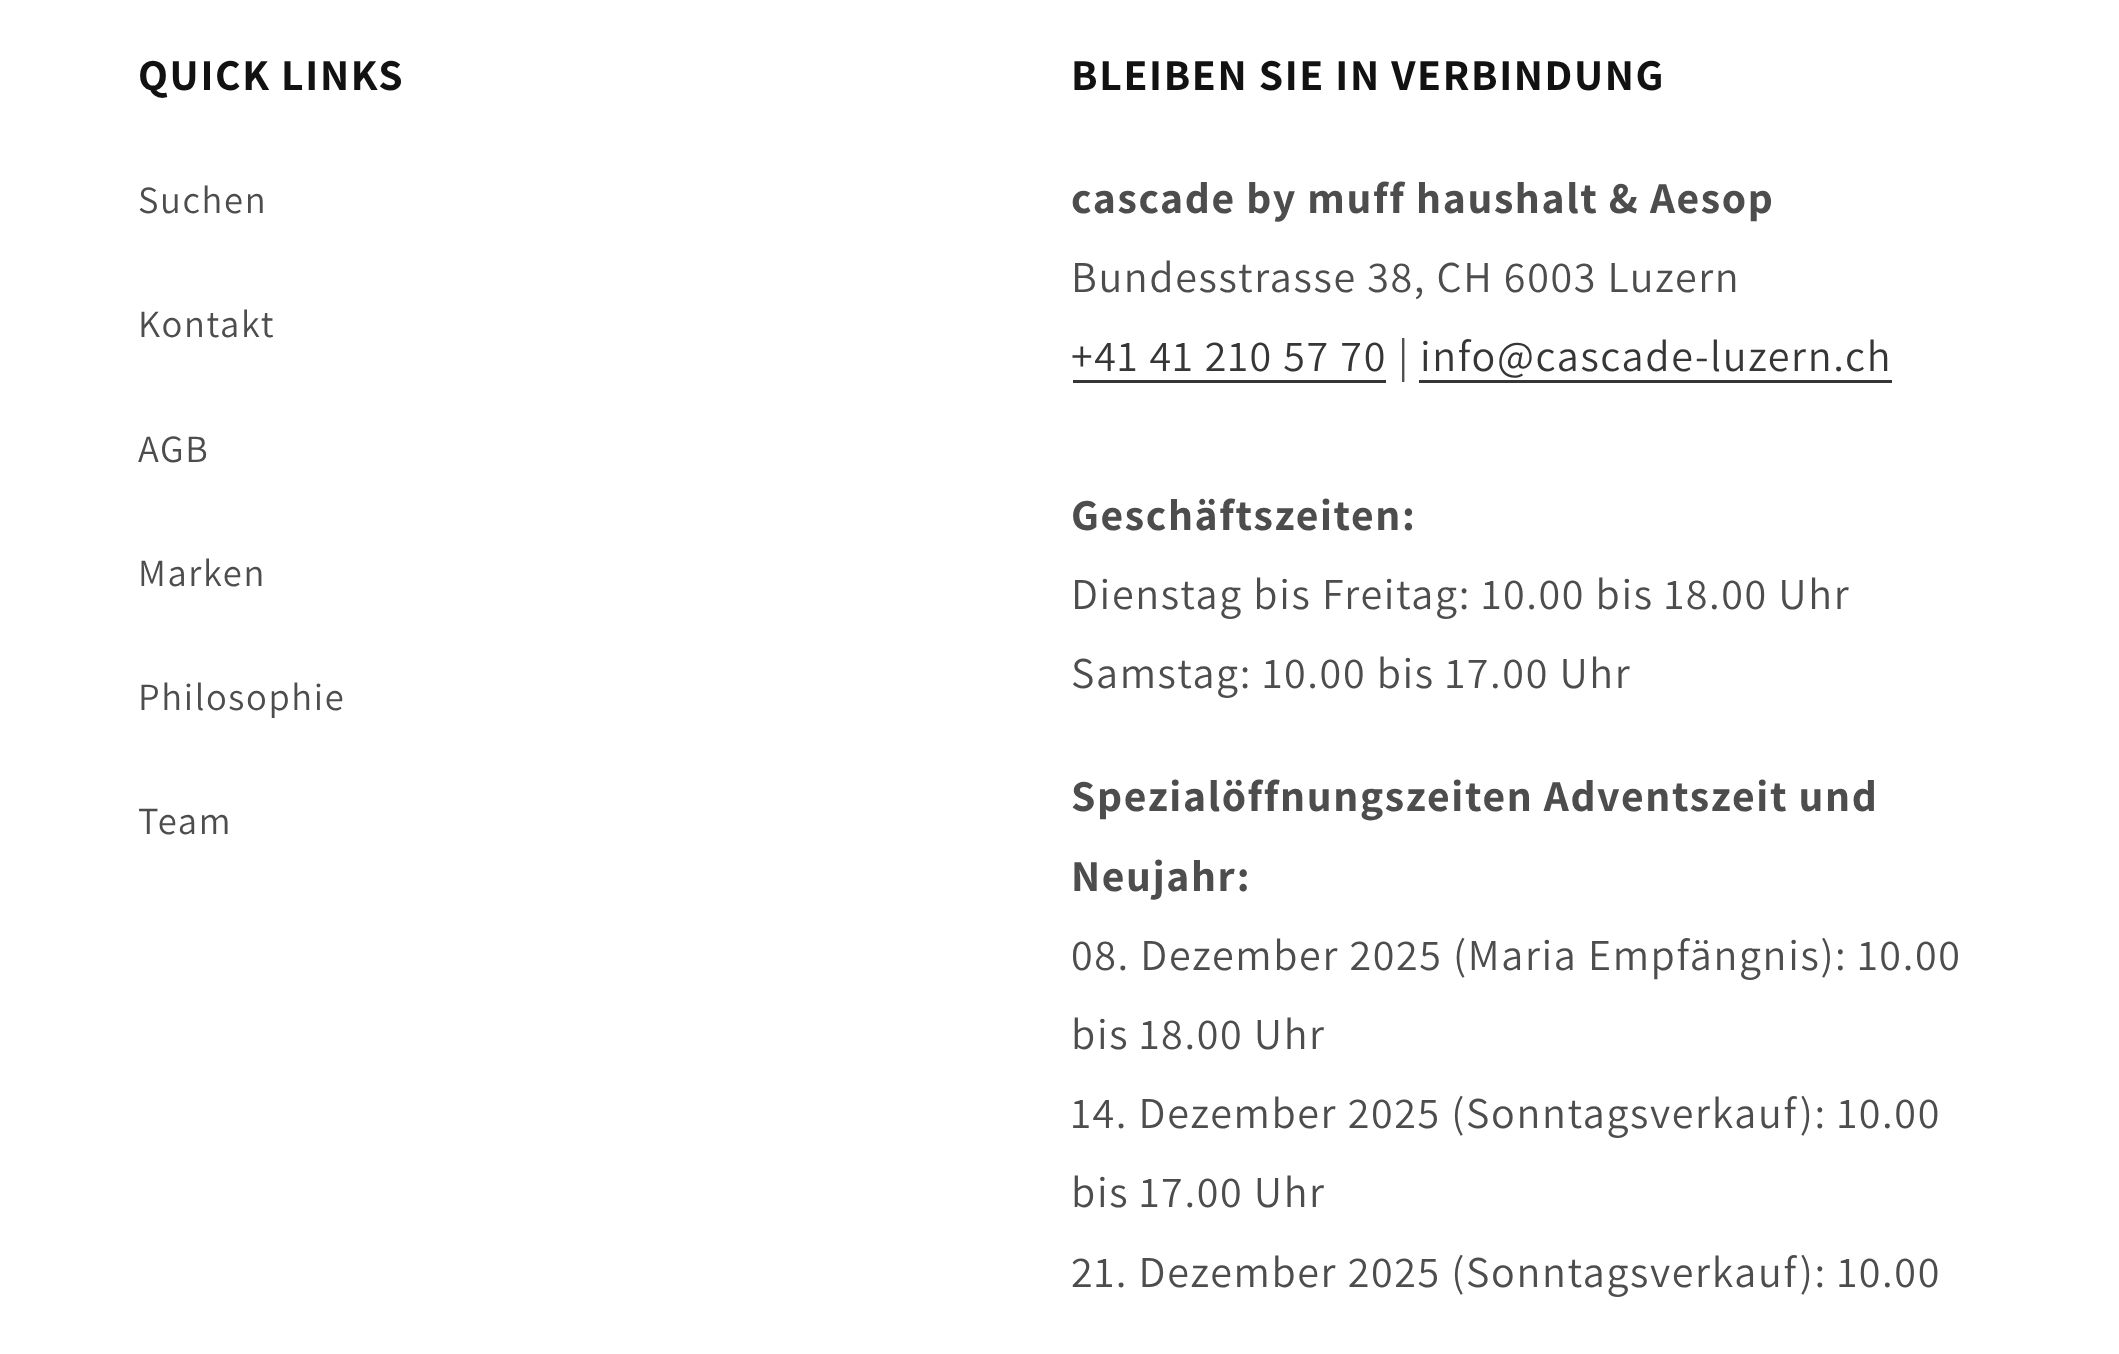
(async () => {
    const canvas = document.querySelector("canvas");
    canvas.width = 2119;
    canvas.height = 1354;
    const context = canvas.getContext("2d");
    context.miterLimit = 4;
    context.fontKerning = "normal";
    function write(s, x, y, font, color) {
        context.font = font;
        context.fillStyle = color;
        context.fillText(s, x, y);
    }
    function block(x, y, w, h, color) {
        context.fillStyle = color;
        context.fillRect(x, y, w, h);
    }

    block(0, 0, 2119, 1354, "rgb(255, 255, 255)");
    context.letterSpacing = "1.65px";
    write("QUICK LINKS", 138, 90, "bold 44px Assistant", "rgb(18, 18, 18)");
    write("Suchen", 138, 213, "38.5px Assistant", "rgb(77, 77, 77)");
    write("Kontakt", 138, 337, "38.5px Assistant", "rgb(77, 77, 77)");
    write("AGB", 138, 462, "38.5px Assistant", "rgb(77, 77, 77)");
    write("Marken", 138, 586, "38.5px Assistant", "rgb(77, 77, 77)");
    write("Philosophie", 138, 710, "38.5px Assistant", "rgb(77, 77, 77)");
    write("Team", 138, 834, "38.5px Assistant", "rgb(77, 77, 77)");
    write("BLEIBEN SIE IN VERBINDUNG", 1071, 90, "bold 44px Assistant", "rgb(18, 18, 18)");
    write("cascade by muff haushalt & Aesop", 1071, 213, "bold 44px Assistant", "rgb(77, 77, 77)");
    write("Bundesstrasse 38, CH 6003 Luzern", 1071, 292, "44px Assistant", "rgb(77, 77, 77)");
    write("+41 41 210 57 70", 1071, 371, "44px Assistant", "rgb(54, 54, 54)");
    block(1073, 380, 313, 3, "rgb(54, 54, 54)");
    write("|", 1398, 371, "44px Assistant", "rgb(77, 77, 77)");
    write("info@cascade-luzern.ch", 1420, 371, "44px Assistant", "rgb(54, 54, 54)");
    block(1419, 380, 473, 3, "rgb(54, 54, 54)");
    write("Geschäftszeiten:", 1071, 530, "bold 44px Assistant", "rgb(77, 77, 77)");
    write("Dienstag bis Freitag: 10.00 bis 18.00 Uhr", 1071, 609, "44px Assistant", "rgb(77, 77, 77)");
    write("Samstag: 10.00 bis 17.00 Uhr", 1071, 688, "44px Assistant", "rgb(77, 77, 77)");
    write("Spezialöffnungszeiten Adventszeit und", 1071, 811, "bold 44px Assistant", "rgb(77, 77, 77)");
    write("Neujahr:", 1071, 891, "bold 44px Assistant", "rgb(77, 77, 77)");
    write("08. Dezember 2025 (Maria Empfängnis): 10.00", 1071, 970, "44px Assistant", "rgb(77, 77, 77)");
    write("bis 18.00 Uhr", 1071, 1049, "44px Assistant", "rgb(77, 77, 77)");
    write("14. Dezember 2025 (Sonntagsverkauf): 10.00", 1071, 1128, "44px Assistant", "rgb(77, 77, 77)");
    write("bis 17.00 Uhr", 1071, 1207, "44px Assistant", "rgb(77, 77, 77)");
    write("21. Dezember 2025 (Sonntagsverkauf): 10.00", 1071, 1287, "44px Assistant", "rgb(77, 77, 77)");
})();
